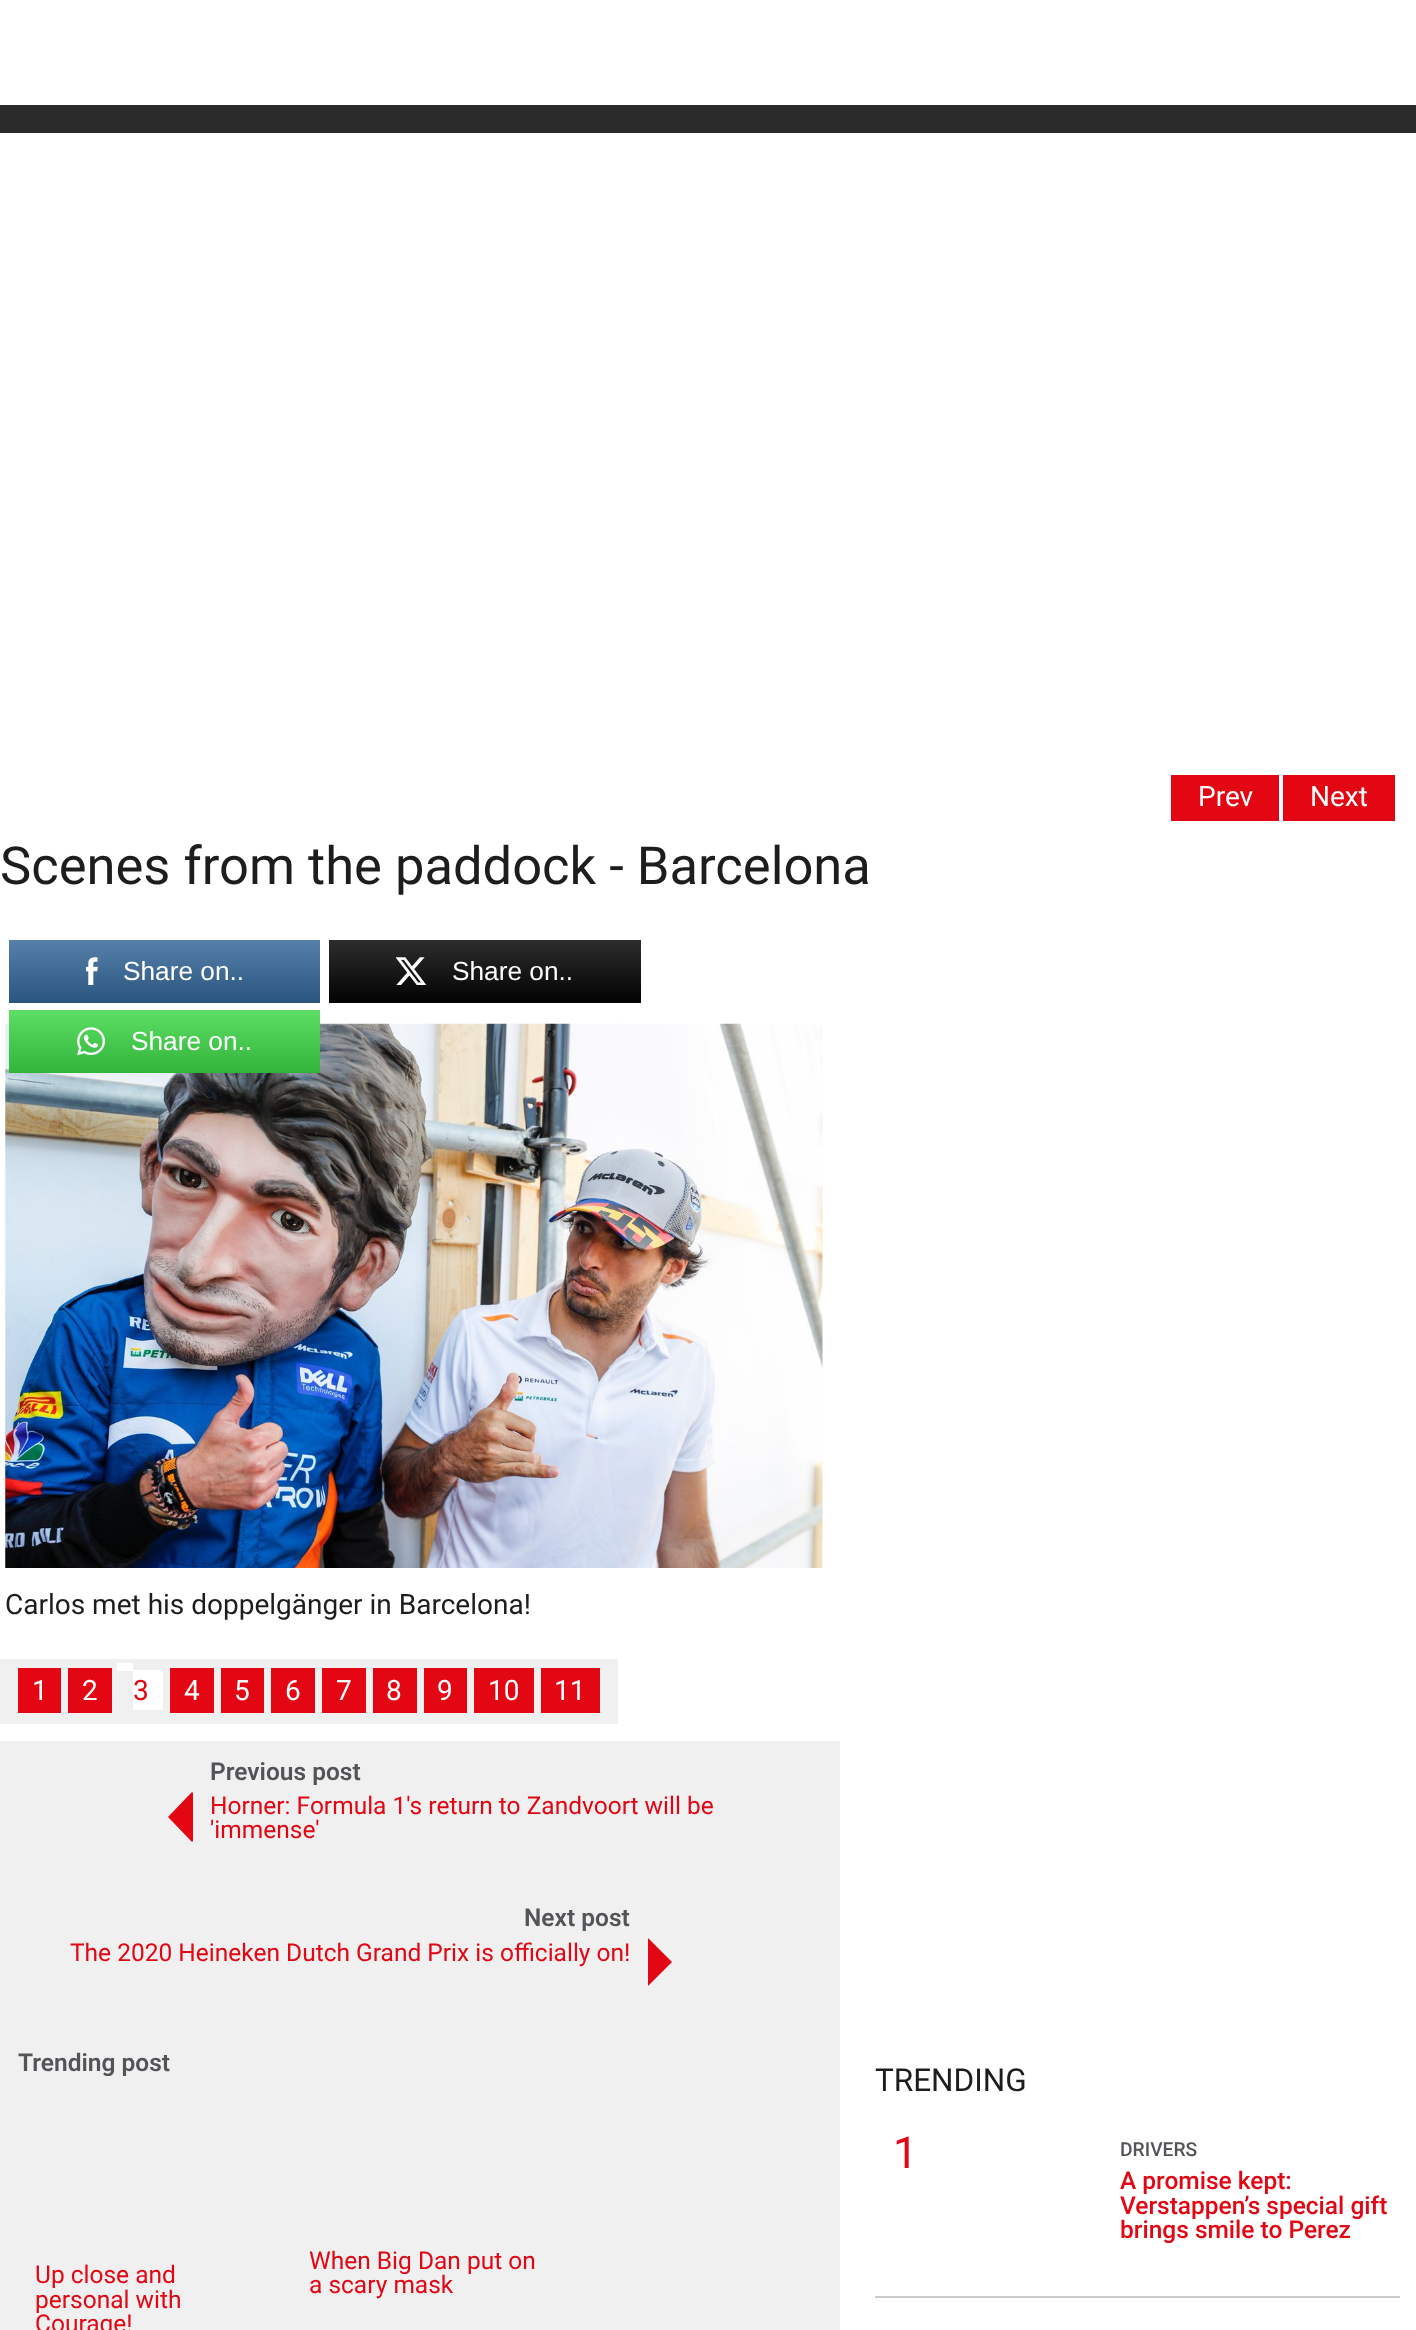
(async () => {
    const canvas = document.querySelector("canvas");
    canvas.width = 1416;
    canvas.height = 2330;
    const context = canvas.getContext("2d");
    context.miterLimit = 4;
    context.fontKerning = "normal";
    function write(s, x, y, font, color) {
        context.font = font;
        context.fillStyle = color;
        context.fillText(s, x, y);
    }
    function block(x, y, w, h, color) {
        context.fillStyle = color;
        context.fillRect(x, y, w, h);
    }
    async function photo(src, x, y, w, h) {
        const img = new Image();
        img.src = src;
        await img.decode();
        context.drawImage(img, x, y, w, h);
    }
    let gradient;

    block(0, 0, 1416, 2330, "rgb(255, 255, 255)");
    block(0, 105, 1416, 28, "rgb(44, 43, 43)");
    block(1171, 775, 108, 46, "rgb(227, 6, 19)");
    write("Prev", 1198, 806, "28px Roboto", "rgb(255, 255, 255)");
    block(1283, 775, 112, 46, "rgb(227, 6, 19)");
    write("Next", 1310, 806, "28px Roboto", "rgb(255, 255, 255)");
    write("Scenes from the paddock - Barcelona", 0, 884, "52.5px Roboto", "rgb(29, 29, 27)");
    gradient = context.createLinearGradient(165, 1003, 165, 940);
    gradient.addColorStop(0, "rgb(42, 85, 127)");
    gradient.addColorStop(1, "rgb(86, 128, 170)");
    context.fillStyle = gradient;
    context.fillRect(9, 940, 311, 63);
    await photo("media/1.png", 86, 957, 12, 28);
    write("Share on..", 123, 980, "26.25px Liberation Sans", "rgb(255, 255, 255)");
    gradient = context.createLinearGradient(485, 1003, 485, 940);
    gradient.addColorStop(0, "rgb(2, 2, 2)");
    gradient.addColorStop(1, "rgb(45, 45, 45)");
    context.fillStyle = gradient;
    context.fillRect(329, 940, 312, 63);
    await photo("media/2.png", 396, 957, 31, 28);
    write("Share on..", 452, 980, "26.25px Liberation Sans", "rgb(255, 255, 255)");
    await photo("media/4.png", 5, 1023, 818, 545);
    gradient = context.createLinearGradient(165, 1073, 165, 1010);
    gradient.addColorStop(0, "rgb(50, 180, 58)");
    gradient.addColorStop(1, "rgb(93, 223, 101)");
    context.fillStyle = gradient;
    context.fillRect(9, 1010, 311, 63);
    await photo("media/3.png", 77, 1027, 28, 28);
    write("Share on..", 131, 1050, "26.25px Liberation Sans", "rgb(255, 255, 255)");
    write("Carlos met his doppelgänger in Barcelona!", 5, 1614, "28px Roboto", "rgb(29, 29, 27)");
    block(0, 1659, 618, 65, "rgb(240, 240, 240)");
    block(18, 1668, 43, 45, "rgb(227, 6, 19)");
    write("1", 32, 1700, "28px Roboto", "rgb(255, 255, 255)");
    block(68, 1668, 44, 45, "rgb(227, 6, 19)");
    write("2", 82, 1700, "28px Roboto", "rgb(255, 255, 255)");
    block(133, 1670, 30, 40, "rgb(255, 255, 255)");
    write("3", 133, 1700, "28px Roboto", "rgb(227, 6, 19)");
    block(117, 1663, 16, 8, "rgb(255, 255, 255)");
    block(170, 1668, 44, 45, "rgb(227, 6, 19)");
    write("4", 184, 1700, "28px Roboto", "rgb(255, 255, 255)");
    block(221, 1668, 43, 45, "rgb(227, 6, 19)");
    write("5", 234, 1700, "28px Roboto", "rgb(255, 255, 255)");
    block(271, 1668, 44, 45, "rgb(227, 6, 19)");
    write("6", 285, 1700, "28px Roboto", "rgb(255, 255, 255)");
    block(322, 1668, 44, 45, "rgb(227, 6, 19)");
    write("7", 336, 1700, "28px Roboto", "rgb(255, 255, 255)");
    block(373, 1668, 44, 45, "rgb(227, 6, 19)");
    write("8", 386, 1700, "28px Roboto", "rgb(255, 255, 255)");
    block(424, 1668, 43, 45, "rgb(227, 6, 19)");
    write("9", 437, 1700, "28px Roboto", "rgb(255, 255, 255)");
    block(474, 1668, 60, 45, "rgb(227, 6, 19)");
    write("10", 488, 1700, "28px Roboto", "rgb(255, 255, 255)");
    block(541, 1668, 59, 45, "rgb(227, 6, 19)");
    write("11", 554, 1700, "28px Roboto", "rgb(255, 255, 255)");
    block(0, 1741, 840, 589, "rgb(240, 240, 240)");
    context.save();
    context.beginPath();
    context.rect(18, 1759, 175, 105);
    context.clip();
    context.fillStyle = "rgb(227, 6, 19)";
    context.beginPath();
    context.moveTo(168, 1817);
    context.lineTo(192, 1792);
    context.lineTo(217, 1817);
    context.lineTo(192, 1842);
    context.closePath();
    context.fill();
    context.restore();
    write("Previous post", 210, 1780, "600 24.5px Roboto", "rgb(83, 84, 87)");
    write("Horner: Formula 1's return to Zandvoort will be", 210, 1814, "24.5px Roboto", "rgb(227, 6, 19)");
    write("'immense'", 210, 1838, "24.5px Roboto", "rgb(227, 6, 19)");
    write("Next post", 524, 1926, "600 24.5px Roboto", "rgb(83, 84, 87)");
    write("The 2020 Heineken Dutch Grand Prix is officially on!", 70, 1961, "24.5px Roboto", "rgb(227, 6, 19)");
    context.save();
    context.beginPath();
    context.rect(648, 1904, 175, 105);
    context.clip();
    context.beginPath();
    context.moveTo(623, 1962);
    context.lineTo(647, 1937);
    context.lineTo(672, 1962);
    context.lineTo(647, 1987);
    context.closePath();
    context.fill();
    context.restore();
    write("Trending post", 18, 2071, "600 24.5px Roboto", "rgb(83, 84, 87)");
    write("Up close and", 35, 2283, "24.5px Roboto", "rgb(227, 6, 19)");
    write("personal with", 35, 2308, "24.5px Roboto", "rgb(227, 6, 19)");
    write("Courage!", 35, 2332, "24.5px Roboto", "rgb(227, 6, 19)");
    write("When Big Dan put on", 309, 2269, "24.5px Roboto", "rgb(227, 6, 19)");
    write("a scary mask", 309, 2293, "24.5px Roboto", "rgb(227, 6, 19)");
    write("TRENDING", 875, 2091, "31.5px Roboto", "rgb(29, 29, 27)");
    write("1", 893, 2168, "44px Roboto", "rgb(227, 6, 19)");
    write("DRIVERS", 1120, 2156, "500 19.25px Roboto", "rgb(83, 84, 87)");
    write("A promise kept:", 1120, 2189, "500 24.5px Roboto", "rgb(227, 6, 19)");
    write("Verstappen’s special gift", 1120, 2214, "500 24.5px Roboto", "rgb(227, 6, 19)");
    write("brings smile to Perez", 1120, 2238, "500 24.5px Roboto", "rgb(227, 6, 19)");
    block(875, 2296, 525, 2, "rgb(203, 204, 205)");
})();
